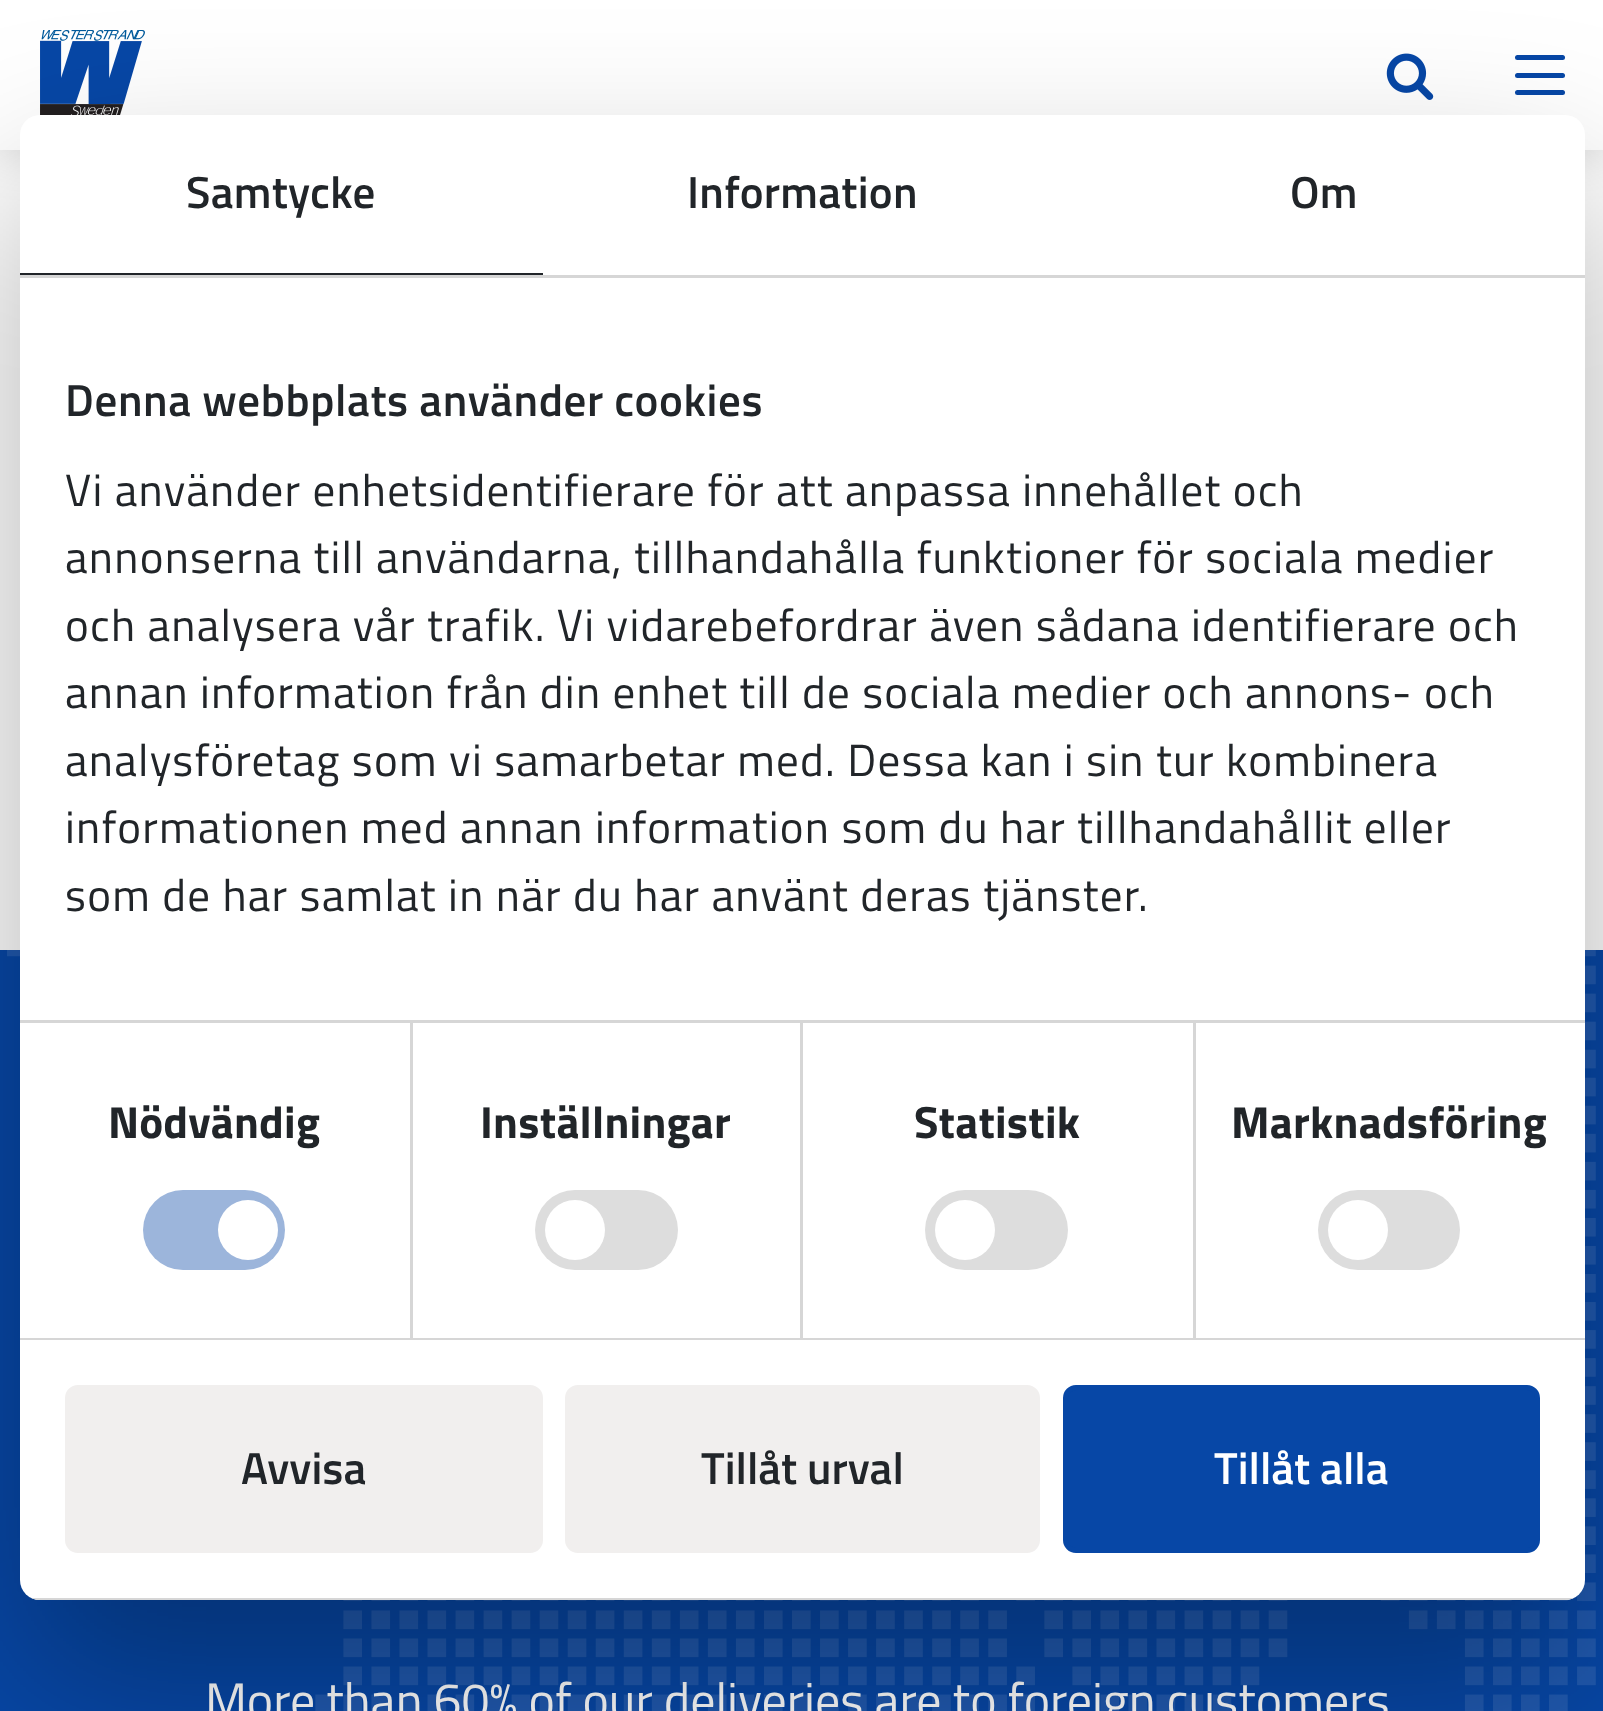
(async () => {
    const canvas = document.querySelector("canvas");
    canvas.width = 1603;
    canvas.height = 1711;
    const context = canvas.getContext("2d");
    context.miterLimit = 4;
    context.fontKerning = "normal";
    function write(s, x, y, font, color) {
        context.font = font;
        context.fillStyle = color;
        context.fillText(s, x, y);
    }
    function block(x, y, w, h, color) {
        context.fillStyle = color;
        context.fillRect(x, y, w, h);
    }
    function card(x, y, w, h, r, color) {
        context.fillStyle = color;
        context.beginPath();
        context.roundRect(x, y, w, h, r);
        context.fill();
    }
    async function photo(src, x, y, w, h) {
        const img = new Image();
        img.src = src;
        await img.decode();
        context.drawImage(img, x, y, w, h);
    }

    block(0, 0, 1603, 1711, "rgb(255, 255, 255)");
    context.fillStyle = "rgba(0, 0, 0, 0.2)";
    context.filter = "blur(25px)";
    context.beginPath();
    context.rect(0, 0, 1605, 150);
    context.fill();
    context.filter = "none";
    block(0, 0, 1603, 150, "rgb(255, 255, 255)");
    await photo("media/1.png", 40, 30, 105, 85);
    await photo("media/2.png", 1386, 53, 48, 47);
    card(1515, 55, 50, 5, 2.5, "rgb(7, 71, 166)");
    card(1515, 73, 50, 5, 2.5, "rgb(7, 71, 166)");
    card(1515, 90, 50, 5, 2.5, "rgb(7, 71, 166)");
    block(0, 950, 1603, 761, "rgb(7, 71, 166)");
    write("More than 60% of our deliveries are to foreign customers", 205, 1718, "50px Titillium Web", "rgb(255, 255, 255)");
    await photo("media/3.png", 7, 950, 1589, 761);
    context.fillStyle = "rgba(0, 0, 0, 0.3)";
    context.filter = "blur(85px)";
    context.beginPath();
    context.roundRect(20, 195, 1565, 1485, 20);
    context.fill();
    context.filter = "none";
    card(20, 115, 1565, 1485, 20, "rgb(255, 255, 255)");
    block(20, 275, 1565, 3, "rgb(214, 214, 214)");
    block(20, 273, 523, 2, "rgb(33, 37, 41)");
    context.letterSpacing = "0.25px";
    write("Samtycke", 186, 208, "600 45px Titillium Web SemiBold", "rgb(33, 37, 41)");
    write("Information", 687, 208, "600 45px Titillium Web SemiBold", "rgb(33, 37, 41)");
    write("Om", 1290, 208, "600 45px Titillium Web SemiBold", "rgb(33, 37, 41)");
    block(20, 1020, 1565, 3, "rgb(214, 214, 214)");
    context.letterSpacing = "0.6px";
    write("Denna webbplats använder cookies", 65, 416, "600 45px Titillium Web SemiBold", "rgb(33, 37, 41)");
    context.letterSpacing = "1.25px";
    write("Vi använder enhetsidentifierare för att anpassa innehållet och", 65, 506, "45px Titillium Web", "rgb(33, 37, 41)");
    write("annonserna till användarna, tillhandahålla funktioner för sociala medier", 65, 573, "45px Titillium Web", "rgb(33, 37, 41)");
    write("och analysera vår trafik. Vi vidarebefordrar även sådana identifierare och", 65, 641, "45px Titillium Web", "rgb(33, 37, 41)");
    write("annan information från din enhet till de sociala medier och annons- och", 65, 708, "45px Titillium Web", "rgb(33, 37, 41)");
    write("analysföretag som vi samarbetar med. Dessa kan i sin tur kombinera", 65, 776, "45px Titillium Web", "rgb(33, 37, 41)");
    write("informationen med annan information som du har tillhandahållit eller", 65, 843, "45px Titillium Web", "rgb(33, 37, 41)");
    write("som de har samlat in när du har använt deras tjänster.", 65, 911, "45px Titillium Web", "rgb(33, 37, 41)");
    block(20, 1338, 1565, 2, "rgb(214, 214, 214)");
    block(410, 1023, 3, 315, "rgb(214, 214, 214)");
    context.letterSpacing = "0.25px";
    write("Nödvändig", 108, 1138, "bold 45px Titillium Web", "rgb(33, 37, 41)");
    card(143, 1190, 142, 80, 40, "rgb(156, 181, 219)");
    context.fillStyle = "rgb(255, 255, 255)";
    context.beginPath();
    context.arc(248, 1230, 30, 0, Math.PI * 2);
    context.fill();
    block(800, 1023, 3, 315, "rgb(214, 214, 214)");
    write("Inställningar", 480, 1138, "bold 45px Titillium Web", "rgb(33, 37, 41)");
    card(535, 1190, 143, 80, 40, "rgb(221, 221, 221)");
    context.fillStyle = "rgb(255, 255, 255)";
    context.beginPath();
    context.arc(575, 1230, 30, 0, Math.PI * 2);
    context.fill();
    block(1193, 1023, 3, 315, "rgb(214, 214, 214)");
    write("Statistik", 914, 1138, "bold 45px Titillium Web", "rgb(33, 37, 41)");
    card(925, 1190, 143, 80, 40, "rgb(221, 221, 221)");
    context.fillStyle = "rgb(255, 255, 255)";
    context.beginPath();
    context.arc(965, 1230, 30, 0, Math.PI * 2);
    context.fill();
    write("Marknadsföring", 1231, 1138, "bold 45px Titillium Web", "rgb(33, 37, 41)");
    card(1318, 1190, 142, 80, 40, "rgb(221, 221, 221)");
    context.fillStyle = "rgb(255, 255, 255)";
    context.beginPath();
    context.arc(1358, 1230, 30, 0, Math.PI * 2);
    context.fill();
    context.save();
    context.beginPath();
    context.roundRect(20, 115, 1565, 1485, 20);
    context.clip();
    block(31, 1598, 1543, 2, "rgb(214, 214, 214)");
    context.restore();
    context.fillStyle = "rgb(241, 239, 238)";
    context.beginPath();
    context.roundRect(67.5, 1387.5, 473, 163, 10.5);
    context.fill();
    context.strokeStyle = "rgb(241, 239, 238)";
    context.lineWidth = 5;
    context.stroke();
    context.letterSpacing = "0px";
    write("Avvisa", 241, 1484, "600 45px Titillium Web SemiBold", "rgb(33, 37, 41)");
    context.fillStyle = "rgb(241, 239, 238)";
    context.beginPath();
    context.roundRect(567.5, 1387.5, 470, 163, 10.5);
    context.fill();
    context.stroke();
    write("Tillåt urval", 701, 1484, "600 45px Titillium Web SemiBold", "rgb(33, 37, 41)");
    context.fillStyle = "rgb(7, 71, 166)";
    context.beginPath();
    context.roundRect(1065.5, 1387.5, 472, 163, 10.5);
    context.fill();
    context.strokeStyle = "rgb(7, 71, 166)";
    context.stroke();
    write("Tillåt alla", 1214, 1484, "600 45px Titillium Web SemiBold", "rgb(255, 255, 255)");
})();
